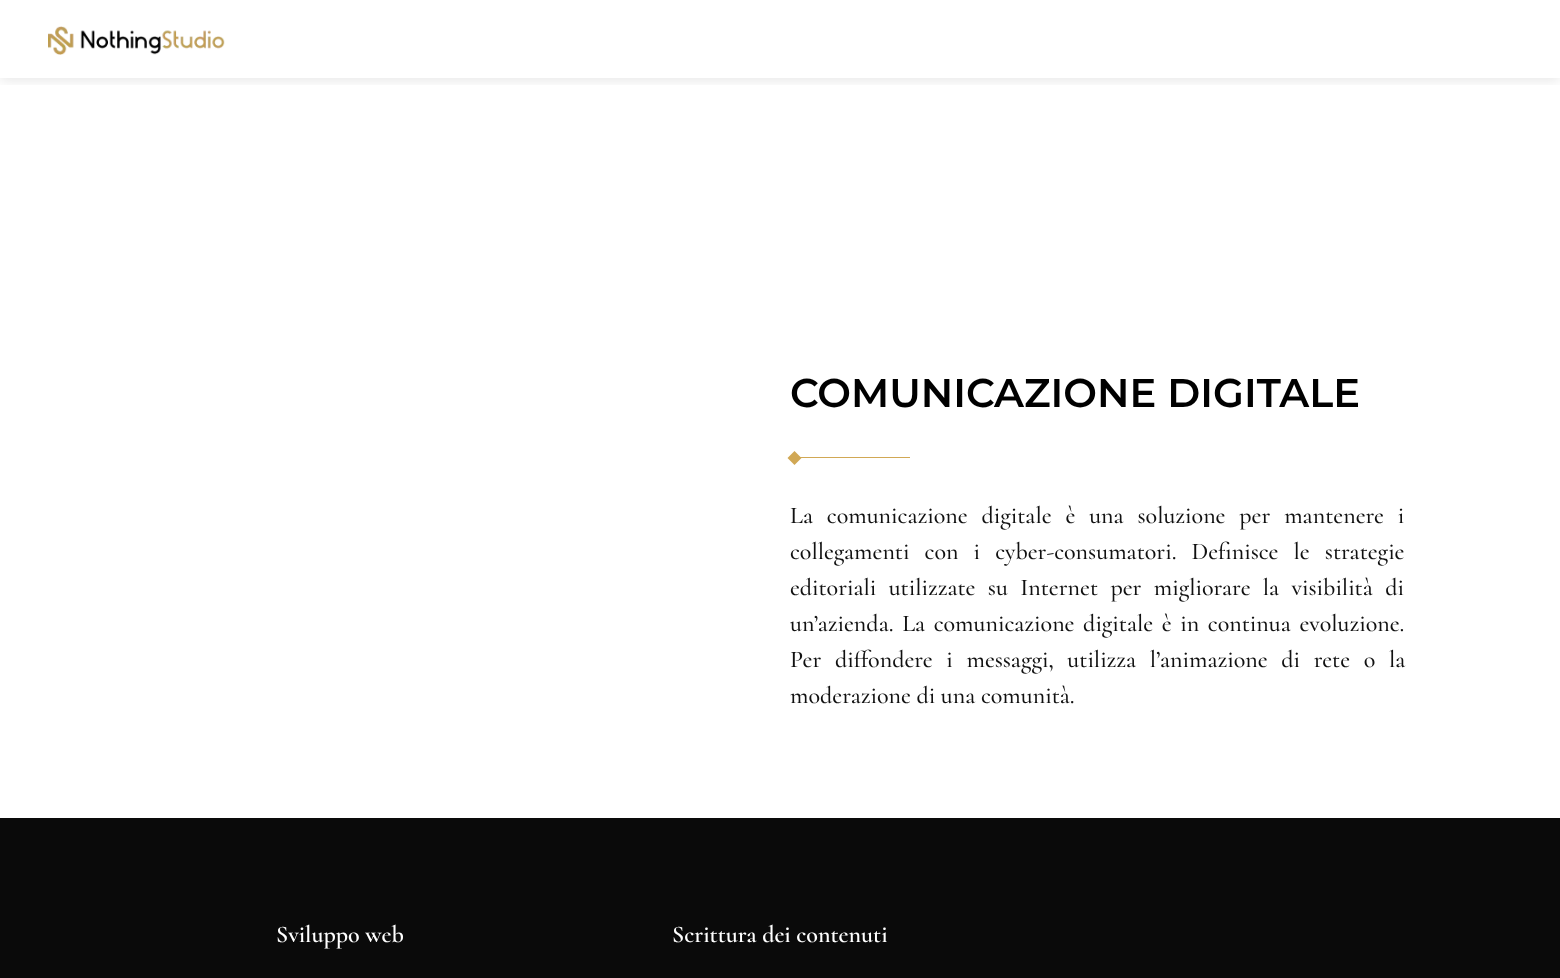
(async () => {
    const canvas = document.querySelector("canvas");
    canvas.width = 1560;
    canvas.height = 978;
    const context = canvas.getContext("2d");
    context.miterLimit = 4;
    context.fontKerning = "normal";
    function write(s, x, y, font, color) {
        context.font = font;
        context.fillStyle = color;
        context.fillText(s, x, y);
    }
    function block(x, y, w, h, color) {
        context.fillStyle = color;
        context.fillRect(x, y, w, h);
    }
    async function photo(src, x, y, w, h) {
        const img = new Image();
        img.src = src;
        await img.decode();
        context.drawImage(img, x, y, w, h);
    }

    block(0, 0, 1560, 978, "rgb(255, 255, 255)");
    context.save();
    context.beginPath();
    context.rect(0, 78, 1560, 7);
    context.clip();
    context.fillStyle = "rgba(0, 0, 0, 0.1)";
    context.filter = "blur(6.5px)";
    context.beginPath();
    context.rect(0, 2, 1560, 78);
    context.fill();
    context.filter = "none";
    context.restore();
    await photo("media/1.png", 48, 26, 177, 29);
    write("COMUNICAZIONE DIGITALE", 790, 407, "600 40px Montserrat", "rgb(0, 0, 0)");
    block(800, 457, 110, 1, "rgb(209, 168, 85)");
    context.beginPath();
    context.moveTo(794.5, 451);
    context.lineTo(801.5, 458);
    context.lineTo(794.5, 465);
    context.lineTo(787.5, 458);
    context.closePath();
    context.fill();
    context.wordSpacing = "8.25px";
    write("La comunicazione digitale è una soluzione per mantenere i", 790, 523, "500 24px Cormorant", "rgb(17, 17, 17)");
    context.wordSpacing = "9.5px";
    write("collegamenti con i cyber-consumatori. Definisce le strategie", 790, 559, "500 24px Cormorant", "rgb(17, 17, 17)");
    context.wordSpacing = "6.75px";
    write("editoriali utilizzate su Internet per migliorare la visibilità di", 790, 595, "500 24px Cormorant", "rgb(17, 17, 17)");
    context.wordSpacing = "3px";
    write("un’azienda. La comunicazione digitale è in continua evoluzione.", 790, 631, "500 24px Cormorant", "rgb(17, 17, 17)");
    context.wordSpacing = "8px";
    write("Per diffondere i messaggi, utilizza l’animazione di rete o la", 790, 667, "500 24px Cormorant", "rgb(17, 17, 17)");
    context.wordSpacing = "0px";
    write("moderazione di una comunità.", 790, 703, "500 24px Cormorant", "rgb(17, 17, 17)");
    block(0, 818, 1560, 160, "rgb(10, 10, 10)");
    write("Sviluppo web", 276, 942, "600 24px Cormorant", "rgb(255, 255, 255)");
    write("Scrittura dei contenuti", 672, 942, "600 24px Cormorant", "rgb(255, 255, 255)");
})();
